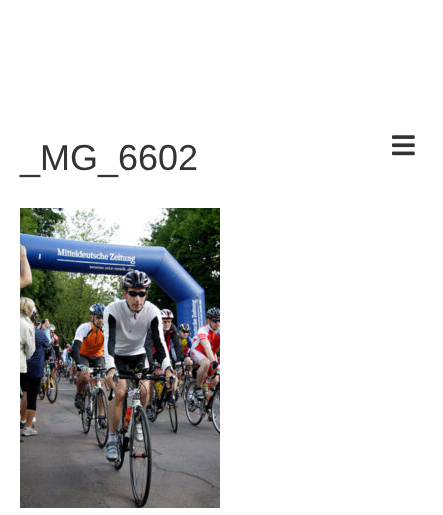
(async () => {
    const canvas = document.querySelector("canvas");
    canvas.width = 443;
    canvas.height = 515;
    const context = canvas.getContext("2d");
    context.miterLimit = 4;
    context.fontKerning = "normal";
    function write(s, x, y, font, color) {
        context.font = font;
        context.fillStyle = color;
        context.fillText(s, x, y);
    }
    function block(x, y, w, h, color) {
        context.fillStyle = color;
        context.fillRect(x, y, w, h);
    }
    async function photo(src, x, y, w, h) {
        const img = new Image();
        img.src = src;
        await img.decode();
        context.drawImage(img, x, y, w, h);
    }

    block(0, 0, 443, 515, "rgb(255, 255, 255)");
    write("_MG_6602", 20, 170, "36px Liberation Sans", "rgb(51, 51, 51)");
    await photo("media/1.png", 20, 208, 200, 300);
    await photo("media/2.png", 392, 135, 23, 21);
})();
